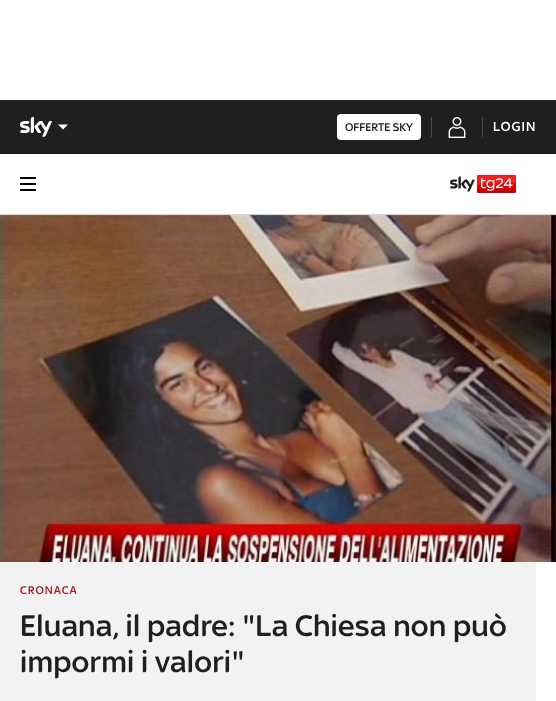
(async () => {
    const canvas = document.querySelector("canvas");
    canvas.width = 556;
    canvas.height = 701;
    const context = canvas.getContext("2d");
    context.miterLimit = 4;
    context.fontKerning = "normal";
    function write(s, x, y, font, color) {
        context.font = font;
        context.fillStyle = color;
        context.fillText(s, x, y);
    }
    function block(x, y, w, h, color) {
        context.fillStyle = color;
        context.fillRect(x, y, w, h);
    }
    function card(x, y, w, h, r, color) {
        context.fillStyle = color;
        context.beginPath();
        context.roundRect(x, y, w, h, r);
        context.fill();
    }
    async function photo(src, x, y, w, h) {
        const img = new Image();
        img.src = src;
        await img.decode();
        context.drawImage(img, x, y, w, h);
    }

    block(0, 0, 556, 701, "rgb(255, 255, 255)");
    block(0, 100, 556, 54, "rgb(31, 31, 31)");
    await photo("media/1.png", 20, 117, 32, 20);
    context.fillStyle = "rgb(255, 255, 255)";
    context.beginPath();
    context.moveTo(58, 124.5);
    context.lineTo(68, 124.5);
    context.lineTo(63, 129.5);
    context.closePath();
    context.fill("evenodd");
    card(337, 114, 84, 26, 4, "rgb(255, 255, 255)");
    write("OFFERTE SKY", 345, 131, "500 12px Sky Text", "rgb(31, 31, 31)");
    block(431, 117, 1, 20, "rgb(76, 76, 76)");
    await photo("media/2.png", 448, 117, 18, 21);
    block(482, 117, 1, 20, "rgb(76, 76, 76)");
    context.letterSpacing = "1px";
    write("LOGIN", 493, 131, "500 14px Sky Text", "rgb(255, 255, 255)");
    block(0, 214, 556, 1, "rgb(214, 214, 214)");
    await photo("media/3.png", 20, 177, 16, 14);
    await photo("media/4.png", 450, 175, 66, 18);
    await photo("media/5.png", 0, 215, 556, 347);
    block(0, 562, 536, 139, "rgb(242, 242, 242)");
    write("CRONACA", 20, 594, "500 12px Sky Text", "rgb(162, 31, 32)");
    context.letterSpacing = "0.2px";
    write("Eluana, il padre: \"La Chiesa non può", 20, 636, "500 32px Sky Text", "rgb(31, 31, 31)");
    write("impormi i valori\"", 20, 672, "500 32px Sky Text", "rgb(31, 31, 31)");
})();
